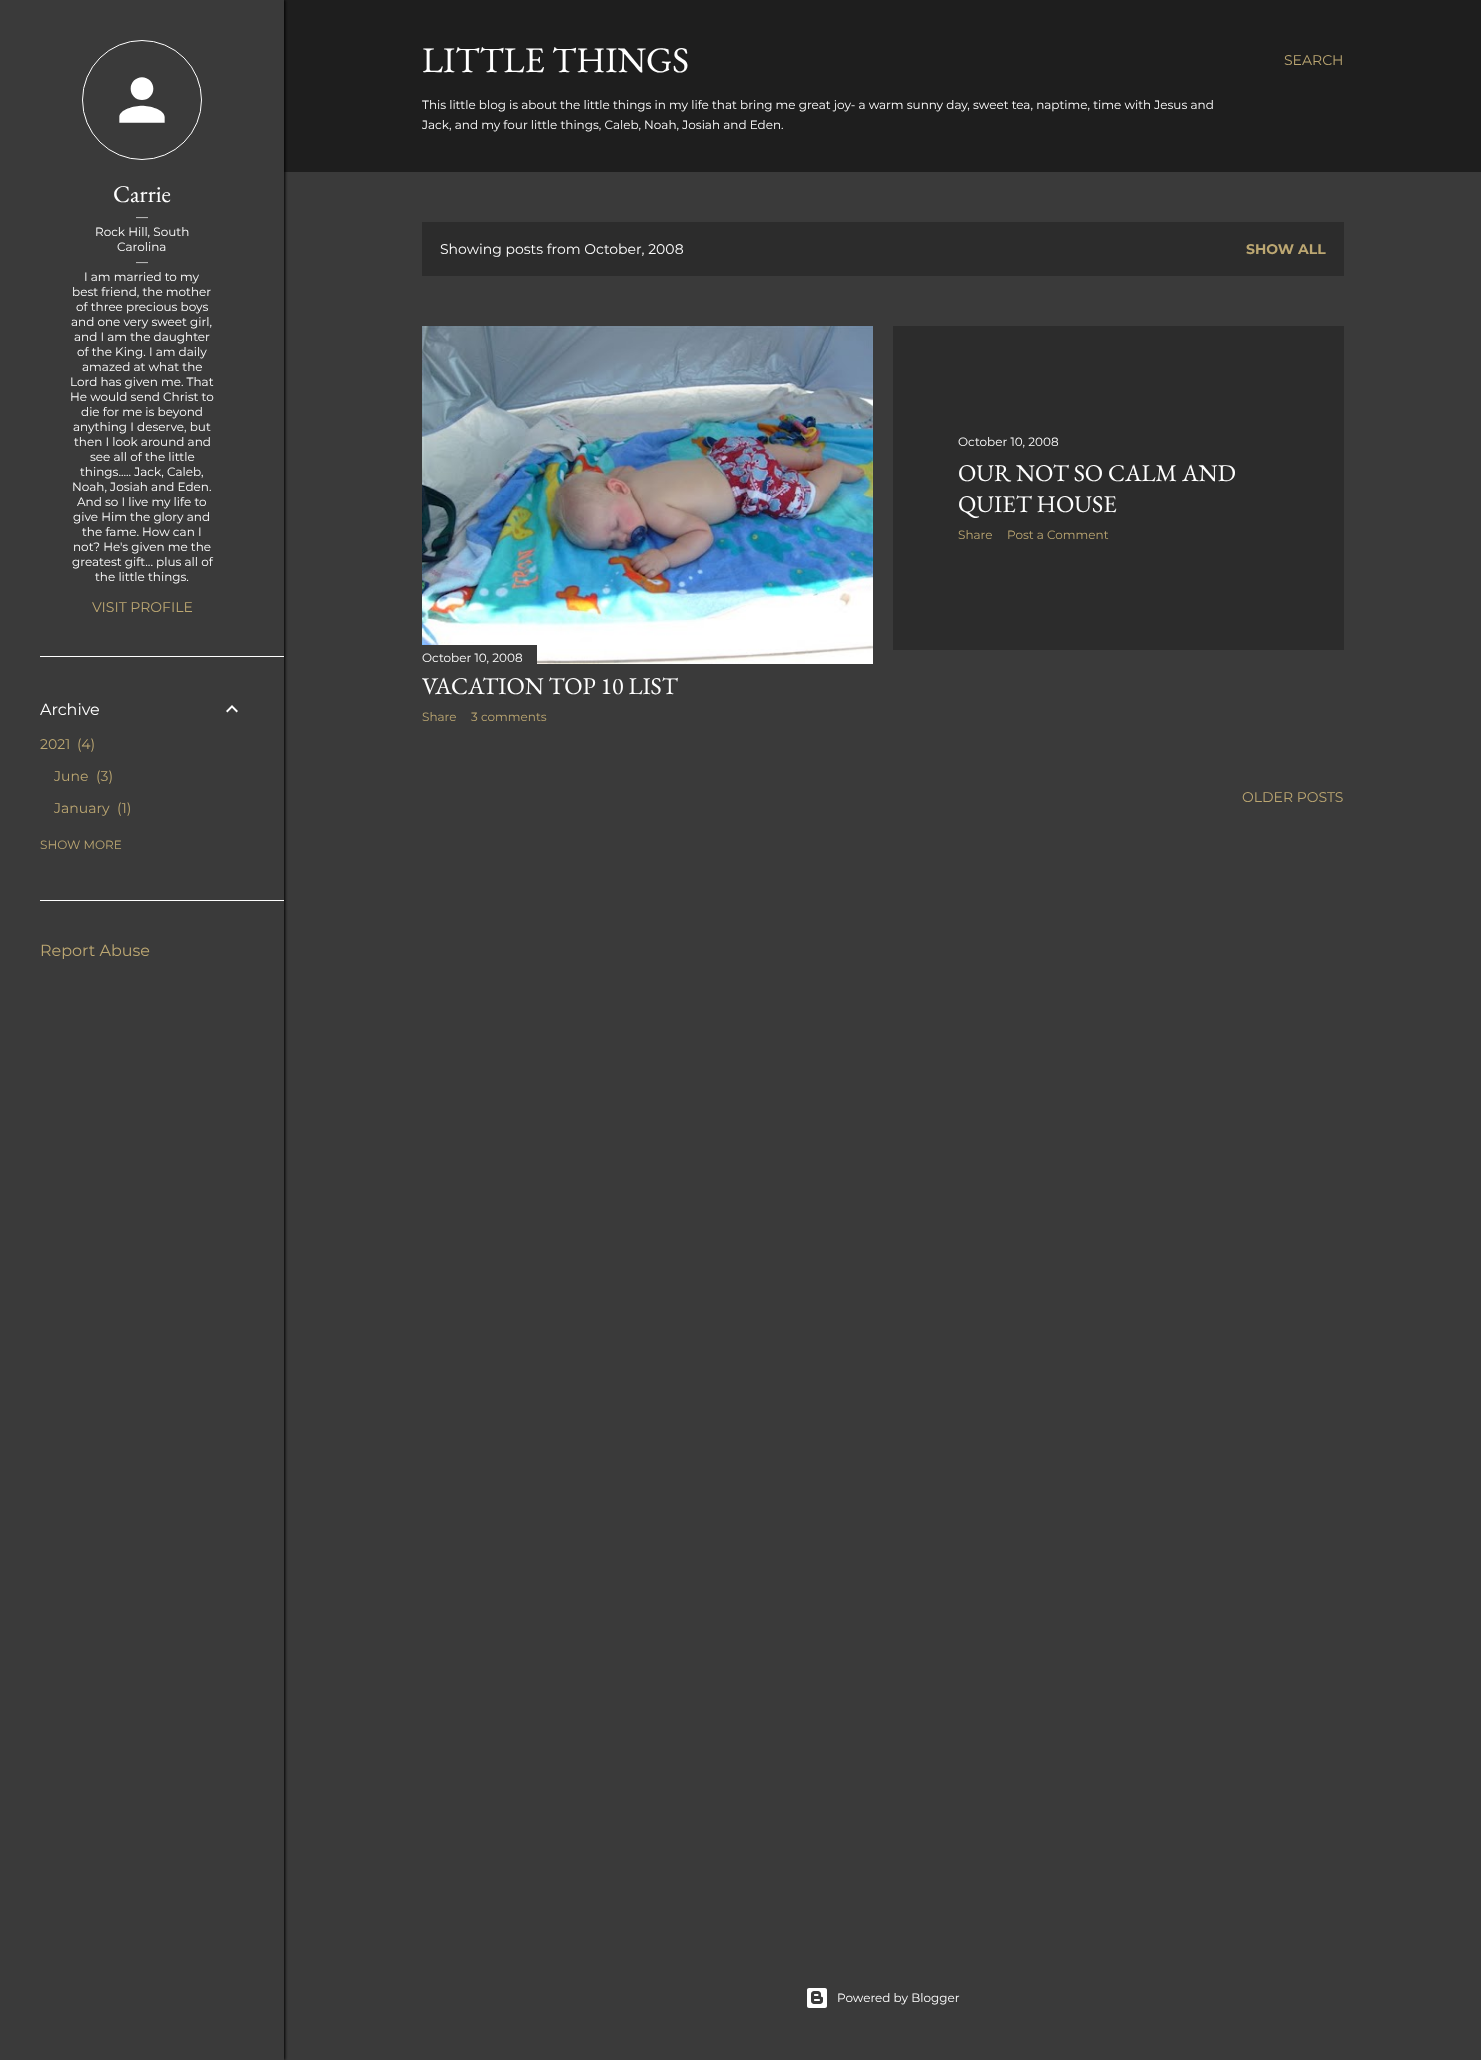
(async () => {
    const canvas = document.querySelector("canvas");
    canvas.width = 1481;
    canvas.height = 2060;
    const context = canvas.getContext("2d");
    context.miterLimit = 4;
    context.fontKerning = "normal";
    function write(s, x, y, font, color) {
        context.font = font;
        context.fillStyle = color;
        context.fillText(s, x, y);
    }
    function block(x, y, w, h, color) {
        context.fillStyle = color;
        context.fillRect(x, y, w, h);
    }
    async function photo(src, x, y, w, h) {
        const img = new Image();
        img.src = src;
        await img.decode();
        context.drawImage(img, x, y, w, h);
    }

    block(0, 0, 1481, 2060, "rgb(58, 58, 58)");
    block(284, 0, 1197, 172, "rgb(30, 30, 30)");
    context.save();
    context.beginPath();
    context.rect(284, 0, 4, 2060);
    context.clip();
    context.fillStyle = "rgb(0, 0, 0)";
    context.filter = "blur(1.5px)";
    context.beginPath();
    context.rect(1, 0, 284, 2060);
    context.fill();
    context.filter = "none";
    context.restore();
    context.beginPath();
    context.arc(142, 100, 59.5, 0, Math.PI * 2);
    context.strokeStyle = "rgb(255, 255, 255)";
    context.stroke();
    await photo("media/1.png", 119, 77, 46, 46);
    write("Carrie", 113, 202, "24px EB Garamond", "rgb(255, 255, 255)");
    write("—", 136, 221, "12px Montserrat", "rgb(255, 255, 255)");
    write("Rock Hill, South", 95, 236, "12px Montserrat", "rgb(255, 255, 255)");
    write("Carolina", 117, 251, "12px Montserrat", "rgb(255, 255, 255)");
    write("—", 136, 266, "12px Montserrat", "rgb(255, 255, 255)");
    write("I am married to my", 84, 281, "12px Montserrat", "rgb(255, 255, 255)");
    write("best friend, the mother", 72, 296, "12px Montserrat", "rgb(255, 255, 255)");
    write("of three precious boys", 76, 311, "12px Montserrat", "rgb(255, 255, 255)");
    write("and one very sweet girl,", 71, 326, "12px Montserrat", "rgb(255, 255, 255)");
    write("and I am the daughter", 74, 341, "12px Montserrat", "rgb(255, 255, 255)");
    write("of the King. I am daily", 77, 356, "12px Montserrat", "rgb(255, 255, 255)");
    write("amazed at what the", 82, 371, "12px Montserrat", "rgb(255, 255, 255)");
    write("Lord has given me. That", 70, 386, "12px Montserrat", "rgb(255, 255, 255)");
    write("He would send Christ to", 70, 401, "12px Montserrat", "rgb(255, 255, 255)");
    write("die for me is beyond", 81, 416, "12px Montserrat", "rgb(255, 255, 255)");
    write("anything I deserve, but", 73, 431, "12px Montserrat", "rgb(255, 255, 255)");
    write("then I look around and", 74, 446, "12px Montserrat", "rgb(255, 255, 255)");
    write("see all of the little", 90, 461, "12px Montserrat", "rgb(255, 255, 255)");
    write("things..... Jack, Caleb,", 80, 476, "12px Montserrat", "rgb(255, 255, 255)");
    write("Noah, Josiah and Eden.", 72, 491, "12px Montserrat", "rgb(255, 255, 255)");
    write("And so I live my life to", 77, 506, "12px Montserrat", "rgb(255, 255, 255)");
    write("give Him the glory and", 73, 521, "12px Montserrat", "rgb(255, 255, 255)");
    write("the fame. How can I", 82, 536, "12px Montserrat", "rgb(255, 255, 255)");
    write("not? He's given me the", 73, 551, "12px Montserrat", "rgb(255, 255, 255)");
    write("greatest gift... plus all of", 72, 566, "12px Montserrat", "rgb(255, 255, 255)");
    write("the little things.", 95, 581, "12px Montserrat", "rgb(255, 255, 255)");
    write("VISIT PROFILE", 92, 612, "14px Montserrat", "rgb(188, 167, 114)");
    block(40, 656, 244, 1, "rgb(255, 255, 255)");
    write("Archive", 40, 715, "16px Montserrat", "rgb(255, 255, 255)");
    await photo("media/2.png", 226, 705, 12, 8);
    write("2021", 40, 749, "14px Montserrat", "rgb(188, 167, 114)");
    write("(4)", 77, 749, "14px Montserrat", "rgb(188, 167, 114)");
    write("June", 54, 781, "14px Montserrat", "rgb(188, 167, 114)");
    write("(3)", 96, 781, "14px Montserrat", "rgb(188, 167, 114)");
    write("January", 54, 813, "14px Montserrat", "rgb(188, 167, 114)");
    write("(1)", 117, 813, "14px Montserrat", "rgb(188, 167, 114)");
    write("SHOW MORE", 40, 849, "12px Montserrat", "rgb(188, 167, 114)");
    block(40, 900, 244, 1, "rgb(255, 255, 255)");
    write("Report Abuse", 40, 956, "16px Montserrat", "rgb(188, 167, 114)");
    write("LITTLE THINGS", 422, 72, "36px EB Garamond", "rgb(255, 255, 255)");
    write("This little blog is about the little things in my life that bring me great joy- a warm sunny day, sweet tea, naptime, time with Jesus and", 422, 109, "12px Montserrat", "rgb(255, 255, 255)");
    write("Jack, and my four little things, Caleb, Noah, Josiah and Eden.", 422, 129, "12px Montserrat", "rgb(255, 255, 255)");
    write("SEARCH", 1284, 65, "14px Montserrat", "rgb(188, 167, 114)");
    block(422, 222, 922, 54, "rgb(44, 44, 44)");
    write("Showing posts from October, 2008", 440, 254, "14px Montserrat", "rgb(255, 255, 255)");
    write("SHOW ALL", 1246, 254, "bold 14px Montserrat", "rgb(188, 167, 114)");
    block(893, 326, 451, 324, "rgb(44, 44, 44)");
    write("October 10, 2008", 958, 446, "12px Montserrat", "rgb(255, 255, 255)");
    write("OUR NOT SO CALM AND", 958, 481, "24px EB Garamond", "rgb(255, 255, 255)");
    write("QUIET HOUSE", 958, 512, "24px EB Garamond", "rgb(255, 255, 255)");
    write("Share", 958, 539, "12px Montserrat", "rgb(188, 167, 114)");
    write("Post a Comment", 1007, 539, "12px Montserrat", "rgb(188, 167, 114)");
    await photo("media/3.png", 422, 326, 451, 338);
    block(422, 645, 115, 19, "rgb(58, 58, 58)");
    write("October 10, 2008", 422, 662, "12px Montserrat", "rgb(255, 255, 255)");
    write("VACATION TOP 10 LIST", 422, 694, "24px EB Garamond", "rgb(255, 255, 255)");
    write("Share", 422, 721, "12px Montserrat", "rgb(188, 167, 114)");
    write("3 comments", 471, 721, "12px Montserrat", "rgb(188, 167, 114)");
    write("OLDER POSTS", 1242, 802, "14px Montserrat", "rgb(188, 167, 114)");
    await photo("media/4.png", 807, 1988, 20, 20);
    write("Powered by Blogger", 837, 2002, "12px Montserrat", "rgb(255, 255, 255)");
})();
